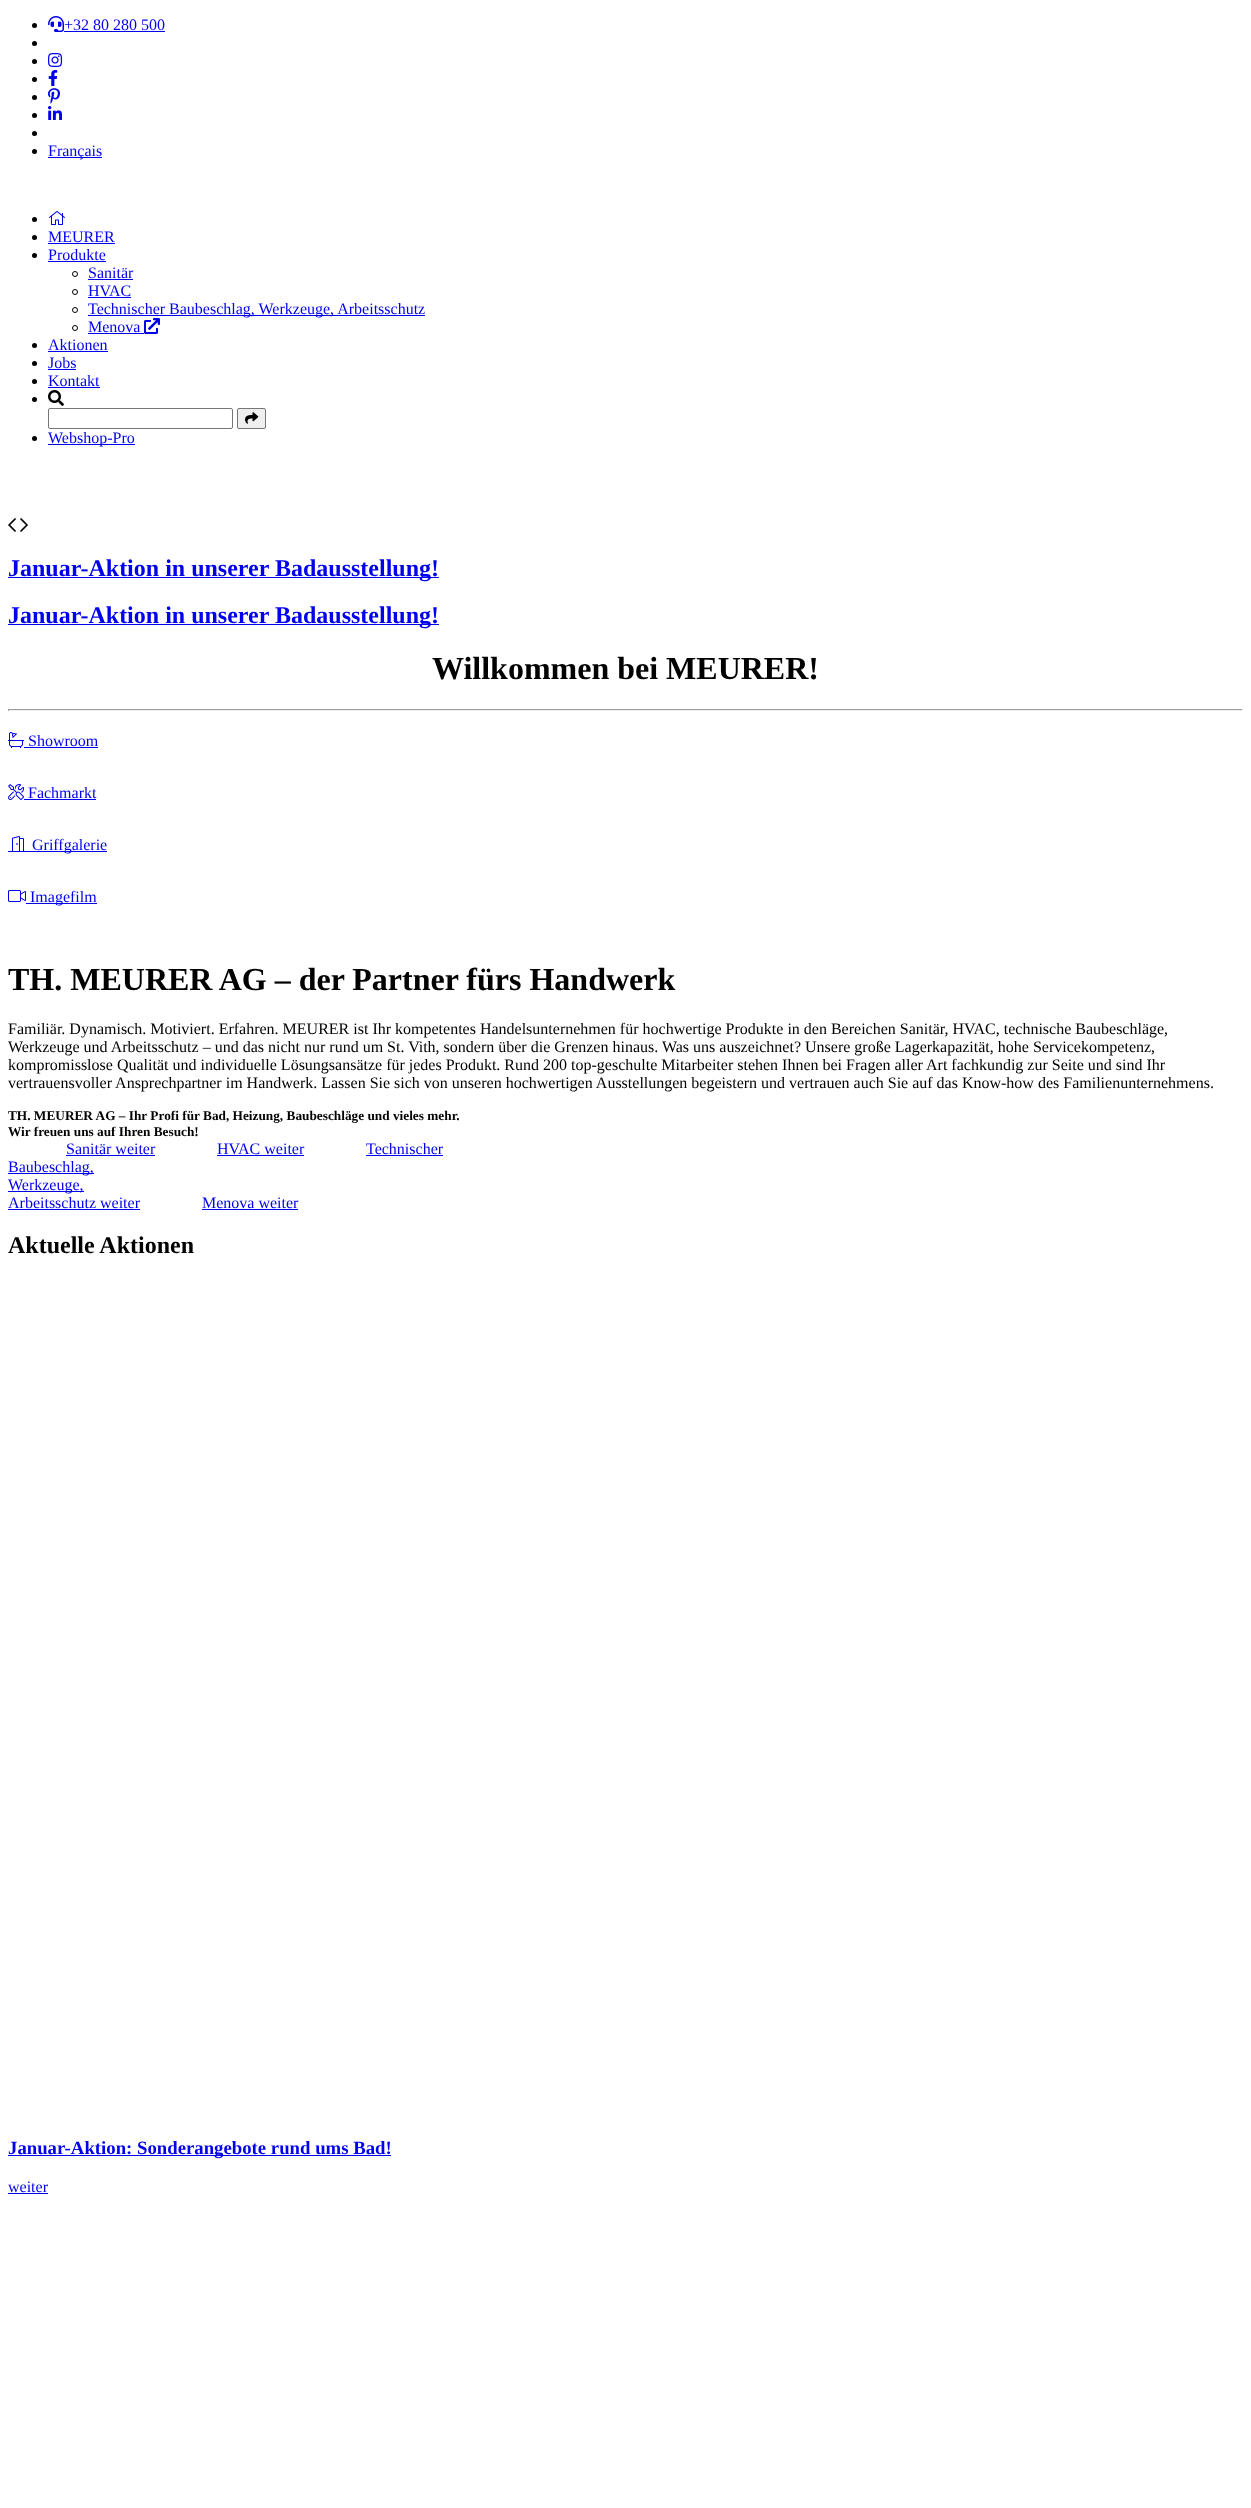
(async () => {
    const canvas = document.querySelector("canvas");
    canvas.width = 1251;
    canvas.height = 2508;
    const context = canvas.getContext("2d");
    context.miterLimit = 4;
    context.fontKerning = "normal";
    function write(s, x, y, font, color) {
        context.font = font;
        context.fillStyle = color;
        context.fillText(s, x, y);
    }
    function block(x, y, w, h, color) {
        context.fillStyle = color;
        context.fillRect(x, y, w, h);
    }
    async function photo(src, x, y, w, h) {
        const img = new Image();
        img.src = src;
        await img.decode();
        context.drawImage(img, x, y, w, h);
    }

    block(0, 0, 1251, 2508, "rgb(255, 255, 255)");
    context.fillStyle = "rgb(0, 0, 0)";
    context.beginPath();
    context.arc(34.5, 25.5, 2.5, 0, Math.PI * 2);
    context.fill();
    await photo("media/1.png", 48, 16, 16, 16);
    write("+32 80 280 500", 64, 30, "16px Liberation Serif", "rgb(0, 0, 238)");
    block(64, 31, 101, 1, "rgb(0, 0, 238)");
    context.fillStyle = "rgb(0, 0, 0)";
    context.beginPath();
    context.arc(34.5, 43.5, 2.5, 0, Math.PI * 2);
    context.fill();
    context.beginPath();
    context.arc(34.5, 61.5, 2.5, 0, Math.PI * 2);
    context.fill();
    await photo("media/2.png", 48, 53, 15, 14);
    context.beginPath();
    context.arc(34.5, 79.5, 2.5, 0, Math.PI * 2);
    context.fill();
    await photo("media/3.png", 48, 70, 10, 16);
    context.beginPath();
    context.arc(34.5, 97.5, 2.5, 0, Math.PI * 2);
    context.fill();
    await photo("media/4.png", 48, 88, 12, 16);
    context.beginPath();
    context.arc(34.5, 115.5, 2.5, 0, Math.PI * 2);
    context.fill();
    await photo("media/5.png", 48, 106, 14, 14);
    context.beginPath();
    context.arc(34.5, 133.5, 2.5, 0, Math.PI * 2);
    context.fill();
    context.beginPath();
    context.arc(34.5, 151.5, 2.5, 0, Math.PI * 2);
    context.fill();
    block(48, 157, 54, 1, "rgb(0, 0, 238)");
    write("Français", 48, 156, "16px Liberation Serif", "rgb(0, 0, 238)");
    context.fillStyle = "rgb(0, 0, 0)";
    context.beginPath();
    context.arc(34.5, 219.5, 2.5, 0, Math.PI * 2);
    context.fill();
    await photo("media/6.png", 49, 211, 16, 14);
    context.beginPath();
    context.arc(34.5, 237.5, 2.5, 0, Math.PI * 2);
    context.fill();
    write("MEURER", 48, 242, "16px Liberation Serif", "rgb(0, 0, 238)");
    block(48, 243, 67, 1, "rgb(0, 0, 238)");
    context.fillStyle = "rgb(0, 0, 0)";
    context.beginPath();
    context.arc(34.5, 255.5, 2.5, 0, Math.PI * 2);
    context.fill();
    write("Produkte", 48, 260, "16px Liberation Serif", "rgb(0, 0, 238)");
    block(48, 261, 58, 1, "rgb(0, 0, 238)");
    context.beginPath();
    context.arc(75, 274, 2.5, 0, Math.PI * 2);
    context.strokeStyle = "rgb(0, 0, 0)";
    context.stroke();
    write("Sanitär", 88, 278, "16px Liberation Serif", "rgb(0, 0, 238)");
    block(88, 279, 45, 1, "rgb(0, 0, 238)");
    context.beginPath();
    context.arc(75, 292, 2.5, 0, Math.PI * 2);
    context.stroke();
    write("HVAC", 88, 296, "16px Liberation Serif", "rgb(0, 0, 238)");
    block(88, 297, 43, 1, "rgb(0, 0, 238)");
    context.beginPath();
    context.arc(75, 310, 2.5, 0, Math.PI * 2);
    context.stroke();
    block(88, 315, 337, 1, "rgb(0, 0, 238)");
    write("Technischer Baubeschlag, Werkzeuge, Arbeitsschutz", 88, 314, "16px Liberation Serif", "rgb(0, 0, 238)");
    context.beginPath();
    context.arc(75, 328, 2.5, 0, Math.PI * 2);
    context.stroke();
    write("Menova", 88, 332, "16px Liberation Serif", "rgb(0, 0, 238)");
    block(88, 333, 56, 1, "rgb(0, 0, 238)");
    await photo("media/7.png", 144, 318, 16, 16);
    context.fillStyle = "rgb(0, 0, 0)";
    context.beginPath();
    context.arc(34.5, 345.5, 2.5, 0, Math.PI * 2);
    context.fill();
    write("Aktionen", 48, 350, "16px Liberation Serif", "rgb(0, 0, 238)");
    block(48, 351, 60, 1, "rgb(0, 0, 238)");
    context.fillStyle = "rgb(0, 0, 0)";
    context.beginPath();
    context.arc(34.5, 363.5, 2.5, 0, Math.PI * 2);
    context.fill();
    write("Jobs", 48, 368, "16px Liberation Serif", "rgb(0, 0, 238)");
    block(48, 369, 28, 1, "rgb(0, 0, 238)");
    context.fillStyle = "rgb(0, 0, 0)";
    context.beginPath();
    context.arc(34.5, 381.5, 2.5, 0, Math.PI * 2);
    context.fill();
    write("Kontakt", 48, 386, "16px Liberation Serif", "rgb(0, 0, 238)");
    block(48, 387, 52, 1, "rgb(0, 0, 238)");
    context.fillStyle = "rgb(0, 0, 0)";
    context.beginPath();
    context.arc(34.5, 399.5, 2.5, 0, Math.PI * 2);
    context.fill();
    await photo("media/8.png", 48, 390, 16, 16);
    context.beginPath();
    context.roundRect(48.5, 408.5, 184, 20, 1.5);
    context.strokeStyle = "rgb(118, 118, 118)";
    context.stroke();
    context.fillStyle = "rgb(239, 239, 239)";
    context.beginPath();
    context.roundRect(237.5, 408.5, 28, 20, 1.5);
    context.fill();
    context.stroke();
    await photo("media/9.png", 245, 412, 14, 12);
    context.fillStyle = "rgb(0, 0, 0)";
    context.beginPath();
    context.arc(34.5, 438.5, 2.5, 0, Math.PI * 2);
    context.fill();
    block(48, 444, 87, 1, "rgb(0, 0, 238)");
    write("Webshop-Pro", 48, 443, "16px Liberation Serif", "rgb(0, 0, 238)");
    await photo("media/10.png", 8, 518, 8, 14);
    await photo("media/11.png", 20, 518, 8, 14);
    block(8, 577, 431, 1, "rgb(0, 0, 238)");
    write("Januar-Aktion in unserer Badausstellung!", 8, 576, "bold 24px Liberation Serif", "rgb(0, 0, 238)");
    block(8, 624, 431, 1, "rgb(0, 0, 238)");
    write("Januar-Aktion in unserer Badausstellung!", 8, 623, "bold 24px Liberation Serif", "rgb(0, 0, 238)");
    write("Willkommen bei MEURER!", 432, 679, "bold 32px Liberation Serif", "rgb(0, 0, 0)");
    block(8, 709, 1235, 1, "rgb(159, 159, 159)");
    block(1242, 709, 1, 2, "rgb(238, 238, 238)");
    block(8, 710, 1235, 1, "rgb(238, 238, 238)");
    block(8, 709, 1, 2, "rgb(159, 159, 159)");
    await photo("media/12.png", 8, 732, 16, 16);
    write("Showroom", 28, 746, "16px Liberation Serif", "rgb(0, 0, 238)");
    block(24, 747, 74, 1, "rgb(0, 0, 238)");
    await photo("media/13.png", 8, 784, 16, 16);
    write("Fachmarkt", 28, 798, "16px Liberation Serif", "rgb(0, 0, 238)");
    block(24, 799, 72, 1, "rgb(0, 0, 238)");
    await photo("media/14.png", 8, 836, 20, 16);
    block(28, 851, 79, 1, "rgb(0, 0, 238)");
    write("Griffgalerie", 32, 850, "16px Liberation Serif", "rgb(0, 0, 238)");
    await photo("media/15.png", 8, 890, 18, 12);
    block(26, 903, 71, 1, "rgb(0, 0, 238)");
    write("Imagefilm", 30, 902, "16px Liberation Serif", "rgb(0, 0, 238)");
    write("TH. MEURER AG – der Partner fürs Handwerk", 8, 990, "bold 32px Liberation Serif", "rgb(0, 0, 0)");
    write("Familiär. Dynamisch. Motiviert. Erfahren. MEURER ist Ihr kompetentes Handelsunternehmen für hochwertige Produkte in den Bereichen Sanitär, HVAC, technische Baubeschläge,", 8, 1034, "16px Liberation Serif", "rgb(0, 0, 0)");
    write("Werkzeuge und Arbeitsschutz – und das nicht nur rund um St. Vith, sondern über die Grenzen hinaus. Was uns auszeichnet? Unsere große Lagerkapazität, hohe Servicekompetenz,", 8, 1052, "16px Liberation Serif", "rgb(0, 0, 0)");
    write("kompromisslose Qualität und individuelle Lösungsansätze für jedes Produkt. Rund 200 top-geschulte Mitarbeiter stehen Ihnen bei Fragen aller Art fachkundig zur Seite und sind Ihr", 8, 1070, "16px Liberation Serif", "rgb(0, 0, 0)");
    write("vertrauensvoller Ansprechpartner im Handwerk. Lassen Sie sich von unseren hochwertigen Ausstellungen begeistern und vertrauen auch Sie auf das Know-how des Familienunternehmens.", 8, 1088, "16px Liberation Serif", "rgb(0, 0, 0)");
    write("TH. MEURER AG – Ihr Profi für Bad, Heizung, Baubeschläge und vieles mehr.", 8, 1120, "bold 13.3px Liberation Serif", "rgb(0, 0, 0)");
    write("Wir freuen uns auf Ihren Besuch!", 8, 1136, "bold 13.3px Liberation Serif", "rgb(0, 0, 0)");
    write("Sanitär weiter", 66, 1154, "16px Liberation Serif", "rgb(0, 0, 238)");
    block(66, 1155, 89, 1, "rgb(0, 0, 238)");
    write("HVAC weiter", 217, 1154, "16px Liberation Serif", "rgb(0, 0, 238)");
    block(217, 1155, 87, 1, "rgb(0, 0, 238)");
    write("Technischer", 366, 1154, "16px Liberation Serif", "rgb(0, 0, 238)");
    block(366, 1155, 77, 1, "rgb(0, 0, 238)");
    block(8, 1173, 86, 1, "rgb(0, 0, 238)");
    write("Baubeschlag,", 8, 1172, "16px Liberation Serif", "rgb(0, 0, 238)");
    block(8, 1191, 76, 1, "rgb(0, 0, 238)");
    write("Werkzeuge,", 8, 1190, "16px Liberation Serif", "rgb(0, 0, 238)");
    write("Arbeitsschutz weiter", 8, 1208, "16px Liberation Serif", "rgb(0, 0, 238)");
    block(8, 1209, 132, 1, "rgb(0, 0, 238)");
    write("Menova weiter", 202, 1208, "16px Liberation Serif", "rgb(0, 0, 238)");
    block(202, 1209, 96, 1, "rgb(0, 0, 238)");
    write("Aktuelle Aktionen", 8, 1253, "bold 24px Liberation Serif", "rgb(0, 0, 0)");
    block(8, 2155, 383, 1, "rgb(0, 0, 238)");
    write("Januar-Aktion: Sonderangebote rund ums Bad!", 8, 2154, "bold 18.75px Liberation Serif", "rgb(0, 0, 238)");
    write("weiter", 8, 2192, "16px Liberation Serif", "rgb(0, 0, 238)");
    block(8, 2193, 40, 1, "rgb(0, 0, 238)");
})();
